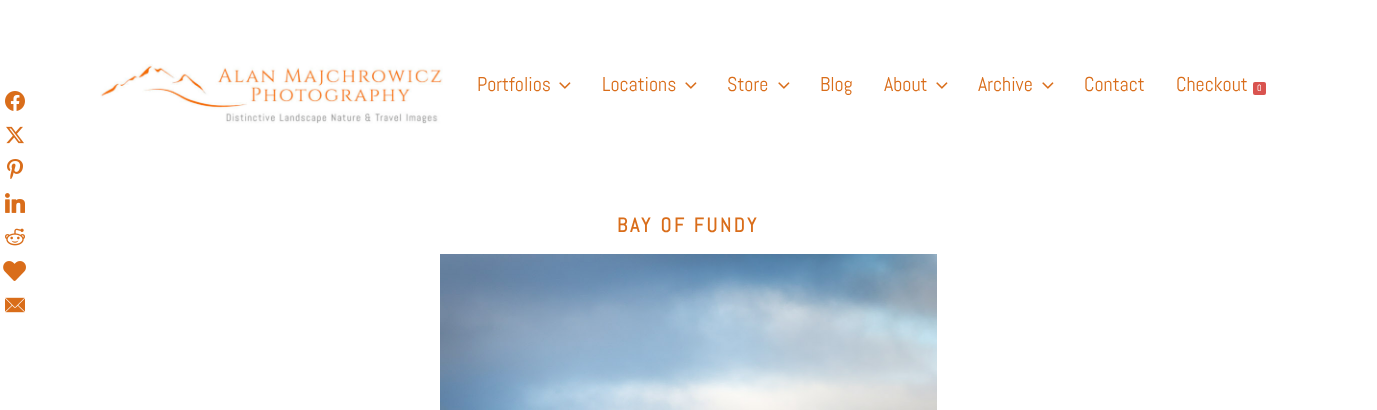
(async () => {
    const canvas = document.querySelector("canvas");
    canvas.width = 1377;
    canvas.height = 410;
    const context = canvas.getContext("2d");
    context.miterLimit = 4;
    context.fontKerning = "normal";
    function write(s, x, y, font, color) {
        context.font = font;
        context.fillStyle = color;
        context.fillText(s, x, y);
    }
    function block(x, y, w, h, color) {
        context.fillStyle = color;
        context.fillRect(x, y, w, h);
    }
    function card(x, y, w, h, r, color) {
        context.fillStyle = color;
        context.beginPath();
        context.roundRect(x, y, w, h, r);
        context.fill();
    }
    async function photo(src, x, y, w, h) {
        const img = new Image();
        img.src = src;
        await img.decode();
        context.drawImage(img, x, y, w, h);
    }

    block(0, 0, 1377, 410, "rgb(255, 255, 255)");
    await photo("media/1.png", 5, 91, 20, 20);
    await photo("media/2.png", 6, 126, 18, 18);
    await photo("media/3.png", 7, 159, 16, 20);
    await photo("media/4.png", 5, 193, 20, 20);
    await photo("media/5.png", 5, 228, 20, 18);
    await photo("media/6.png", 3, 261, 23, 20);
    await photo("media/7.png", 5, 297, 20, 16);
    await photo("media/8.png", 100, 64, 343, 60);
    write("Portfolios", 477, 91, "20px Abel", "rgb(217, 109, 26)");
    await photo("media/9.png", 559, 82, 12, 7);
    write("Locations", 602, 91, "20px Abel", "rgb(217, 109, 26)");
    await photo("media/9.png", 685, 82, 12, 7);
    write("Store", 727, 91, "20px Abel", "rgb(217, 109, 26)");
    await photo("media/9.png", 778, 82, 12, 7);
    write("Blog", 820, 91, "20px Abel", "rgb(217, 109, 26)");
    write("About", 884, 91, "20px Abel", "rgb(217, 109, 26)");
    await photo("media/9.png", 936, 82, 12, 7);
    write("Archive", 978, 91, "20px Abel", "rgb(217, 109, 26)");
    await photo("media/9.png", 1042, 82, 12, 7);
    write("Contact", 1084, 91, "20px Abel", "rgb(217, 109, 26)");
    write("Checkout", 1176, 91, "20px Abel", "rgb(217, 109, 26)");
    card(1253, 82, 13, 13, 2, "rgb(217, 83, 79)");
    write("0", 1257, 91, "9px Abel", "rgb(255, 255, 255)");
    context.letterSpacing = "2.75px";
    write("BAY OF FUNDY", 617, 232, "bold 20px Abel", "rgb(217, 109, 26)");
    await photo("media/10.png", 440, 254, 497, 156);
})();
